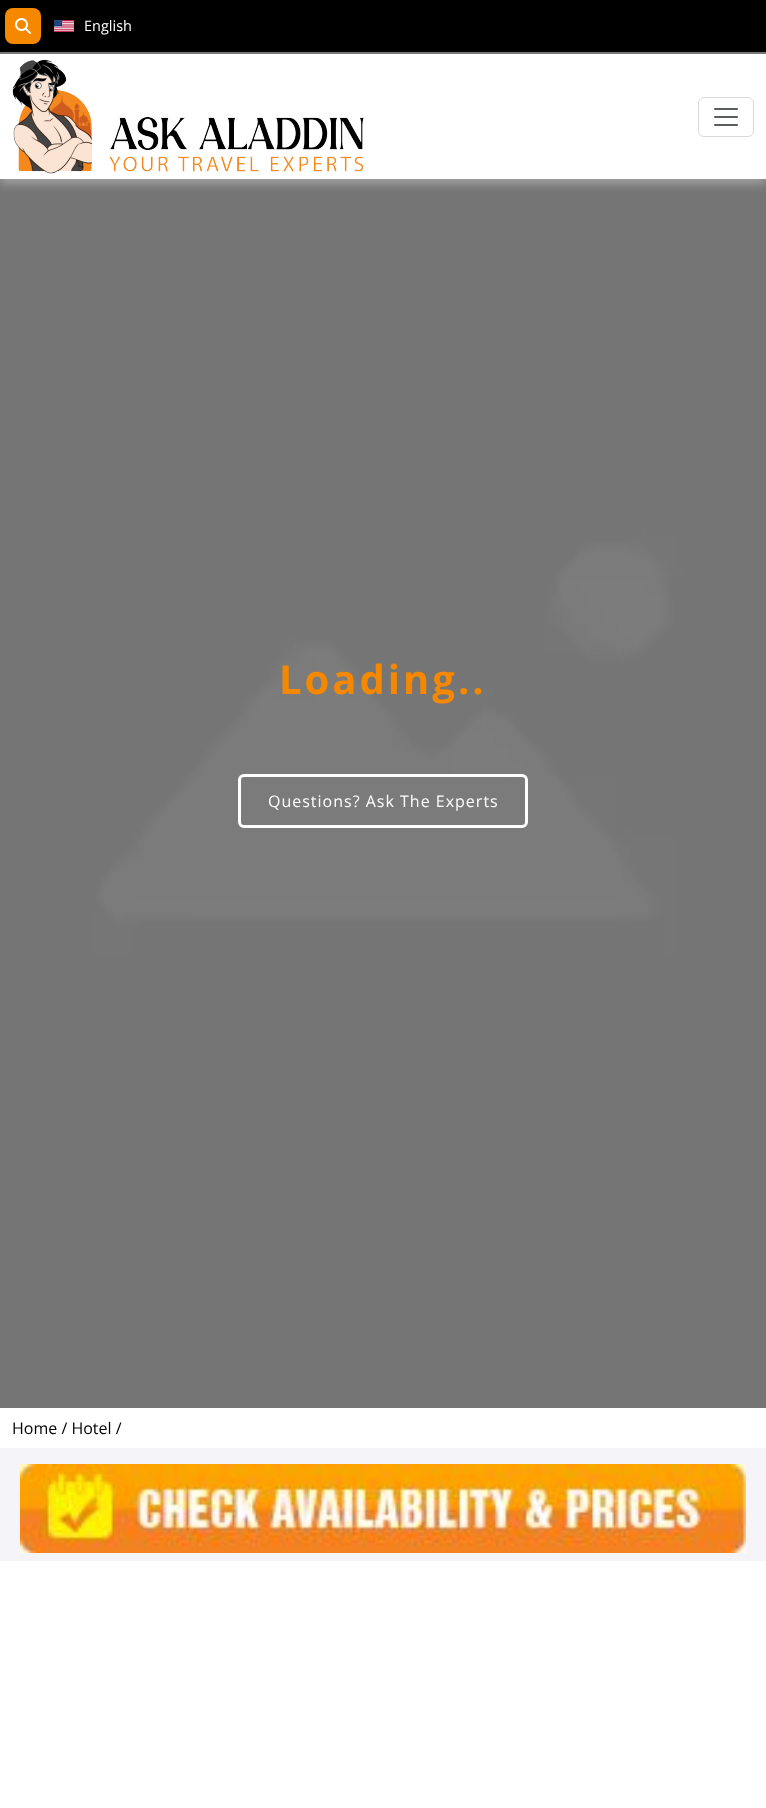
(async () => {
    const canvas = document.querySelector("canvas");
    canvas.width = 766;
    canvas.height = 1808;
    const context = canvas.getContext("2d");
    context.miterLimit = 4;
    context.fontKerning = "normal";
    function write(s, x, y, font, color) {
        context.font = font;
        context.fillStyle = color;
        context.fillText(s, x, y);
    }
    function block(x, y, w, h, color) {
        context.fillStyle = color;
        context.fillRect(x, y, w, h);
    }
    function card(x, y, w, h, r, color) {
        context.fillStyle = color;
        context.beginPath();
        context.roundRect(x, y, w, h, r);
        context.fill();
    }
    async function photo(src, x, y, w, h) {
        const img = new Image();
        img.src = src;
        await img.decode();
        context.drawImage(img, x, y, w, h);
    }

    block(0, 0, 766, 1808, "rgb(255, 255, 255)");
    block(0, 0, 766, 52, "rgb(0, 0, 0)");
    card(5, 8, 36, 36, 8, "rgb(246, 136, 0)");
    await photo("media/1.png", 15, 18, 16, 16);
    await photo("media/2.png", 54, 20, 20, 12);
    write("English", 84, 31, "14.5px Open Sans", "rgb(255, 255, 255)");
    await photo("media/5.png", 0, 52, 766, 1356);
    context.fillStyle = "rgba(204, 204, 204, 0.5)";
    context.filter = "blur(5px)";
    context.beginPath();
    context.rect(0, 59, 766, 125);
    context.fill();
    context.filter = "none";
    block(0, 54, 766, 125, "rgb(255, 255, 255)");
    await photo("media/3.png", 12, 59, 352, 115);
    context.beginPath();
    context.roundRect(698.5, 97.5, 55, 39, 5.5);
    context.strokeStyle = "rgb(217, 217, 217)";
    context.stroke();
    await photo("media/4.png", 714, 108, 24, 18);
    context.letterSpacing = "3px";
    write("Loading..", 279, 694, "bold 40px Open Sans", "rgb(246, 136, 0)");
    context.beginPath();
    context.roundRect(239.5, 775.5, 287, 51, 4.5);
    context.strokeStyle = "rgb(255, 255, 255)";
    context.lineWidth = 3;
    context.stroke();
    context.letterSpacing = "1px";
    write("Questions? Ask The Experts", 268, 807, "16px Open Sans", "rgb(255, 255, 255)");
    context.letterSpacing = "0px";
    write("Home / Hotel /", 12, 1434, "16px Open Sans", "rgb(0, 0, 0)");
    block(0, 1448, 766, 113, "rgb(244, 244, 249)");
    await photo("media/6.png", 20, 1464, 726, 89);
})();
